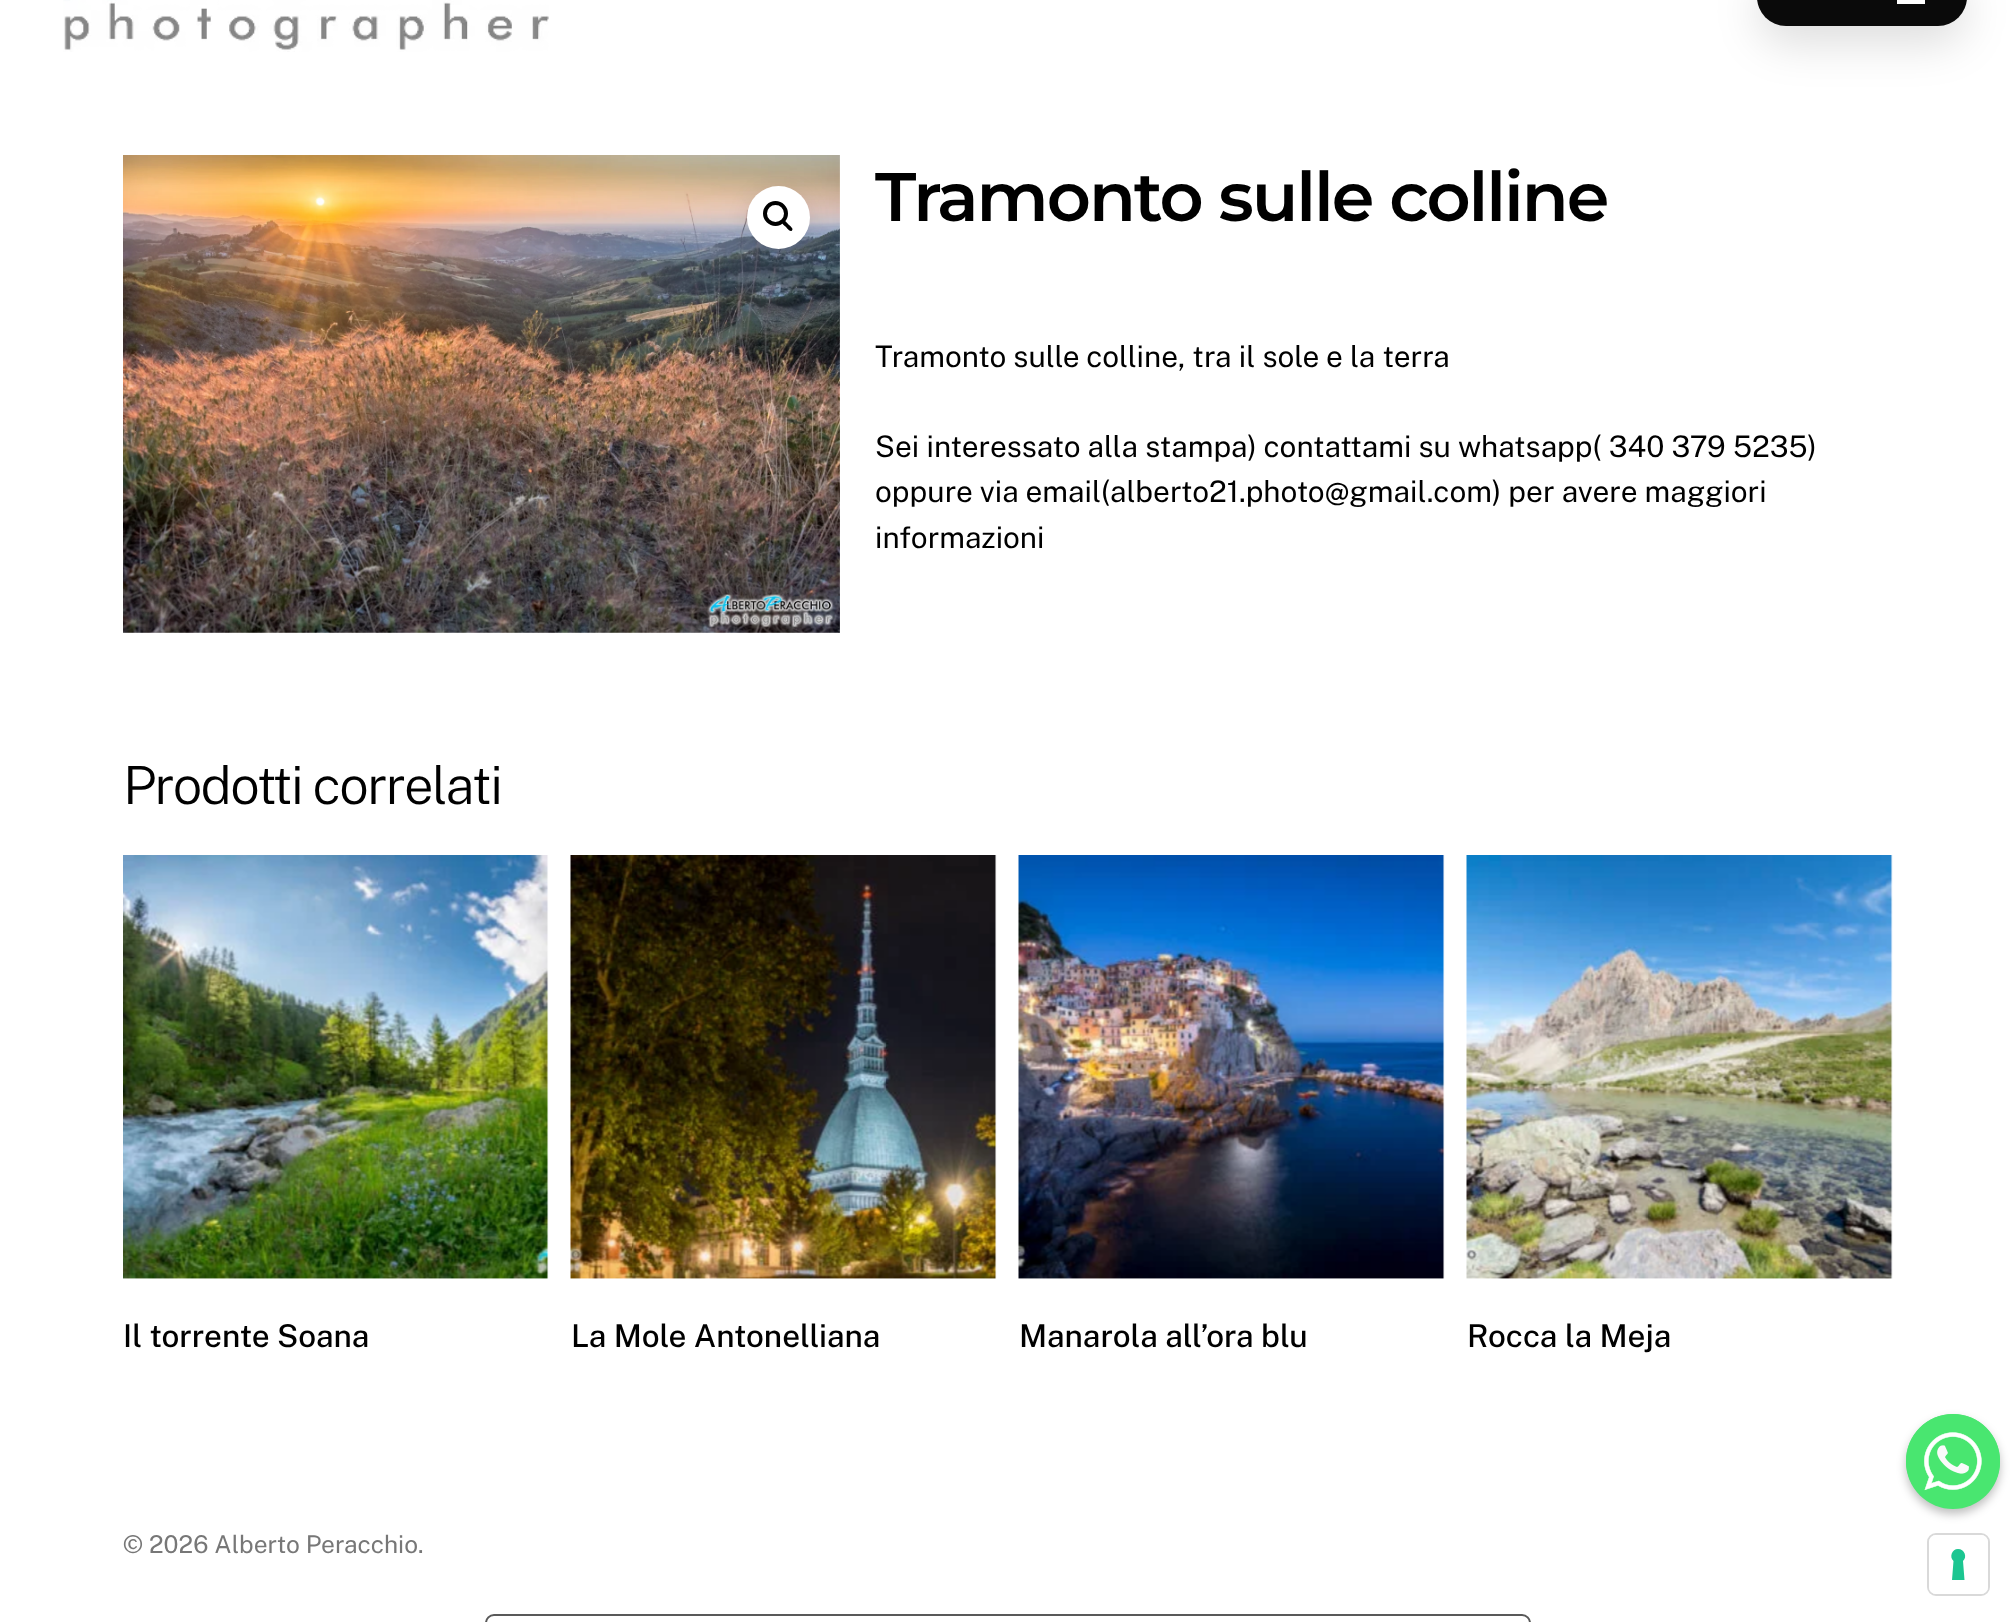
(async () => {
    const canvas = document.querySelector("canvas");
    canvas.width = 2015;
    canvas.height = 1622;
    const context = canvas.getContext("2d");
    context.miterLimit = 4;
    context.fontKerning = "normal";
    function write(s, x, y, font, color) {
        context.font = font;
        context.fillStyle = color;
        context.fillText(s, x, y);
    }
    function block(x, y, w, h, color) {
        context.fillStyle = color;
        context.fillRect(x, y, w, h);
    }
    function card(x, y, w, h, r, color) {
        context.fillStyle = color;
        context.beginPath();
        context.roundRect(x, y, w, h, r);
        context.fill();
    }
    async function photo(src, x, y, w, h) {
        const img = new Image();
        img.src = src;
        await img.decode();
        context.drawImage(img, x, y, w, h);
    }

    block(0, 0, 2015, 1622, "rgb(255, 255, 255)");
    await photo("media/1.png", 63, 0, 486, 52);
    context.fillStyle = "rgba(0, 0, 0, 0.13)";
    context.filter = "blur(22px)";
    context.beginPath();
    context.roundRect(1757, -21, 210, 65, 32.5);
    context.fill();
    context.filter = "none";
    card(1757, -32, 210, 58, 32, "rgb(10, 10, 10)");
    block(1897, 0, 28, 4, "rgb(255, 255, 255)");
    await photo("media/2.png", 123, 155, 717, 478);
    context.fillStyle = "rgba(0, 0, 0, 0.08)";
    context.filter = "blur(10.5px)";
    context.beginPath();
    context.roundRect(747, 189, 63, 63, 31.5);
    context.fill();
    context.filter = "none";
    context.fillStyle = "rgb(255, 255, 255)";
    context.beginPath();
    context.arc(778.5, 217.5, 31.5, 0, Math.PI * 2);
    context.fill();
    context.beginPath();
    context.arc(775.5, 213.5, 10.5, 0, Math.PI * 2);
    context.strokeStyle = "rgb(0, 0, 0)";
    context.lineWidth = 4;
    context.stroke();
    context.fillStyle = "rgb(0, 0, 0)";
    context.beginPath();
    context.moveTo(782.5, 221);
    context.bezierCurveTo(784.5, 219, 787.5, 223.5, 788.5, 224.5);
    context.bezierCurveTo(789.5, 225.5, 794, 228.5, 792, 230.5);
    context.bezierCurveTo(790, 232.5, 787, 228, 786, 227);
    context.bezierCurveTo(785, 226, 780.5, 223, 782.5, 221);
    context.closePath();
    context.fill();
    context.letterSpacing = "-2.05px";
    write("Tramonto sulle colline", 875, 221, "600 68.5px Montserrat", "rgb(0, 0, 0)");
    context.letterSpacing = "0px";
    write("Tramonto sulle colline, tra il sole e la terra", 875, 367, "29.75px Public Sans", "rgb(0, 0, 0)");
    write("Sei interessato alla stampa) contattami su whatsapp( 340 379 5235)", 875, 457, "29.75px Public Sans", "rgb(0, 0, 0)");
    write("oppure via email(alberto21.photo@gmail.com) per avere maggiori", 875, 502, "29.75px Public Sans", "rgb(0, 0, 0)");
    write("informazioni", 875, 548, "29.75px Public Sans", "rgb(0, 0, 0)");
    context.letterSpacing = "-1.6px";
    write("Prodotti correlati", 123, 804, "300 52.5px Public Sans", "rgb(0, 0, 0)");
    await photo("media/3.png", 123, 855, 426, 424);
    context.letterSpacing = "0px";
    write("Il torrente Soana", 123, 1347, "500 31.5px Public Sans", "rgb(0, 0, 0)");
    await photo("media/4.png", 570, 855, 427, 424);
    write("La Mole Antonelliana", 571, 1347, "500 31.5px Public Sans", "rgb(0, 0, 0)");
    await photo("media/5.png", 1018, 855, 427, 424);
    write("Manarola all’ora blu", 1019, 1347, "500 31.5px Public Sans", "rgb(0, 0, 0)");
    await photo("media/6.png", 1466, 855, 427, 424);
    write("Rocca la Meja", 1467, 1347, "500 31.5px Public Sans", "rgb(0, 0, 0)");
    write("© 2026 Alberto Peracchio.", 123, 1553, "24.5px Public Sans", "rgb(119, 119, 119)");
    context.fillStyle = "rgba(0, 0, 0, 0.25)";
    context.filter = "blur(5px)";
    context.beginPath();
    context.roundRect(1906, 1419, 94, 95, 47);
    context.fill();
    context.filter = "none";
    card(1906, 1414, 94, 95, 47, "rgb(73, 230, 112)");
    await photo("media/7.png", 1906, 1414, 94, 77);
    context.beginPath();
    context.roundRect(1928, 1534, 61, 61, 8);
    context.strokeStyle = "rgb(217, 217, 217)";
    context.lineWidth = 2;
    context.stroke();
    card(1929, 1535, 59, 59, 7, "rgb(255, 255, 255)");
    context.fillStyle = "rgb(28, 198, 145)";
    context.beginPath();
    context.moveTo(1958, 1549);
    context.bezierCurveTo(1964.5, 1549, 1967.5, 1557, 1963, 1561);
    context.lineTo(1964.5, 1580);
    context.lineTo(1952, 1580);
    context.lineTo(1953.5, 1561);
    context.bezierCurveTo(1949, 1557, 1952, 1549, 1958, 1549);
    context.closePath();
    context.fill("evenodd");
    context.beginPath();
    context.roundRect(486, 1615, 1044, 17, 8);
    context.strokeStyle = "rgb(89, 89, 89)";
    context.stroke();
})();
